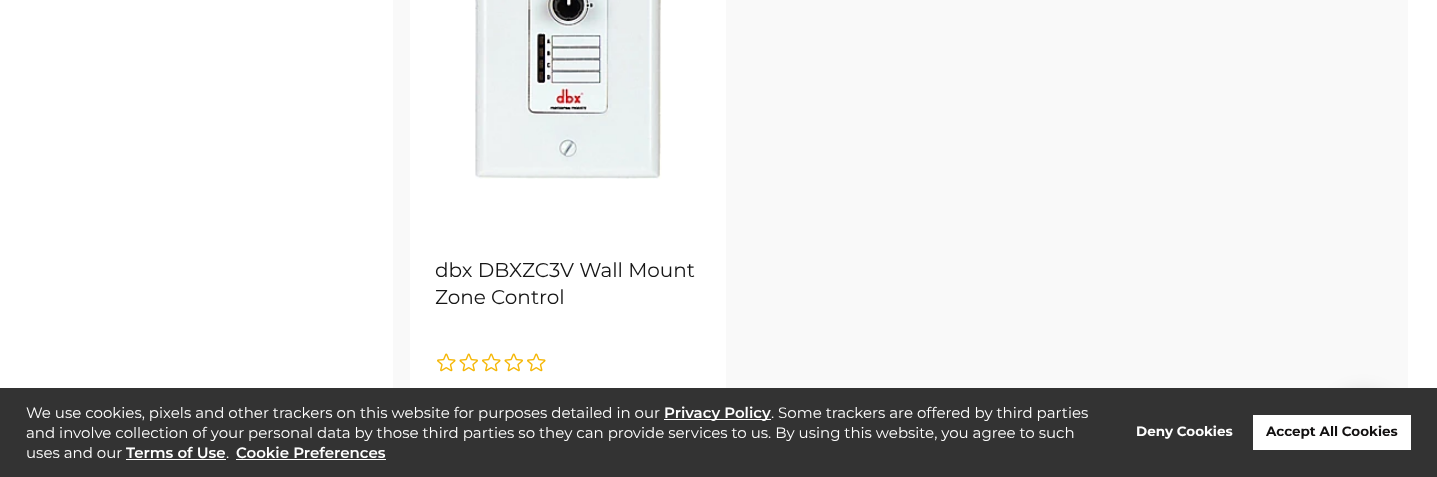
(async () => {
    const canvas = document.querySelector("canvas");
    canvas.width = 1437;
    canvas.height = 477;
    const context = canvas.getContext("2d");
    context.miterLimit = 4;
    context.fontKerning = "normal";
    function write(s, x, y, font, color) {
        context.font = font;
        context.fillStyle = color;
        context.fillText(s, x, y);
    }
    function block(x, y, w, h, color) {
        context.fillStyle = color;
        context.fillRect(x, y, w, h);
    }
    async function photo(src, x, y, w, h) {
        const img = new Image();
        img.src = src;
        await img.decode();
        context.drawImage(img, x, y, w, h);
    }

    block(0, 0, 1437, 477, "rgb(255, 255, 255)");
    block(393, 0, 1015, 388, "rgb(249, 249, 249)");
    block(410, 0, 316, 388, "rgb(255, 255, 255)");
    await photo("media/1.png", 475, 0, 187, 179);
    write("dbx DBXZC3V Wall Mount", 435, 277, "20px Montserrat", "rgb(22, 22, 22)");
    write("Zone Control", 435, 304, "20px Montserrat", "rgb(22, 22, 22)");
    await photo("media/2.png", 437, 353, 19, 19);
    await photo("media/3.png", 459, 353, 19, 19);
    await photo("media/2.png", 482, 353, 19, 19);
    await photo("media/3.png", 504, 353, 19, 19);
    await photo("media/2.png", 527, 353, 19, 19);
    context.fillStyle = "rgba(0, 0, 0, 0.13)";
    context.filter = "blur(10px)";
    context.beginPath();
    context.roundRect(1328, 393, 70, 70, 35);
    context.fill();
    context.filter = "none";
    block(0, 388, 1437, 89, "rgb(51, 51, 51)");
    write("We use cookies, pixels and other trackers on this website for purposes detailed in our", 26, 418, "15px Montserrat", "rgb(255, 255, 255)");
    block(664, 419, 107, 1, "rgb(255, 255, 255)");
    write("Privacy Policy", 664, 418, "600 15px Montserrat", "rgb(255, 255, 255)");
    write(". Some trackers are offered by third parties", 771, 418, "15px Montserrat", "rgb(255, 255, 255)");
    write("and involve collection of your personal data by those third parties so they can provide services to us. By using this website, you agree to such", 26, 438, "15px Montserrat", "rgb(255, 255, 255)");
    write("uses and our", 26, 458, "15px Montserrat", "rgb(255, 255, 255)");
    write("Terms of Use", 126, 458, "600 15px Montserrat", "rgb(255, 255, 255)");
    block(126, 459, 100, 1, "rgb(255, 255, 255)");
    write(".", 226, 458, "15px Montserrat", "rgb(255, 255, 255)");
    write("Cookie Preferences", 236, 458, "600 15px Montserrat", "rgb(255, 255, 255)");
    block(236, 459, 150, 1, "rgb(255, 255, 255)");
    write("Deny Cookies", 1136, 436, "bold 13.5px Montserrat", "rgb(255, 255, 255)");
    block(1253, 415, 158, 35, "rgb(255, 255, 255)");
    write("Accept All Cookies", 1266, 436, "bold 13.5px Montserrat", "rgb(18, 16, 16)");
})();
